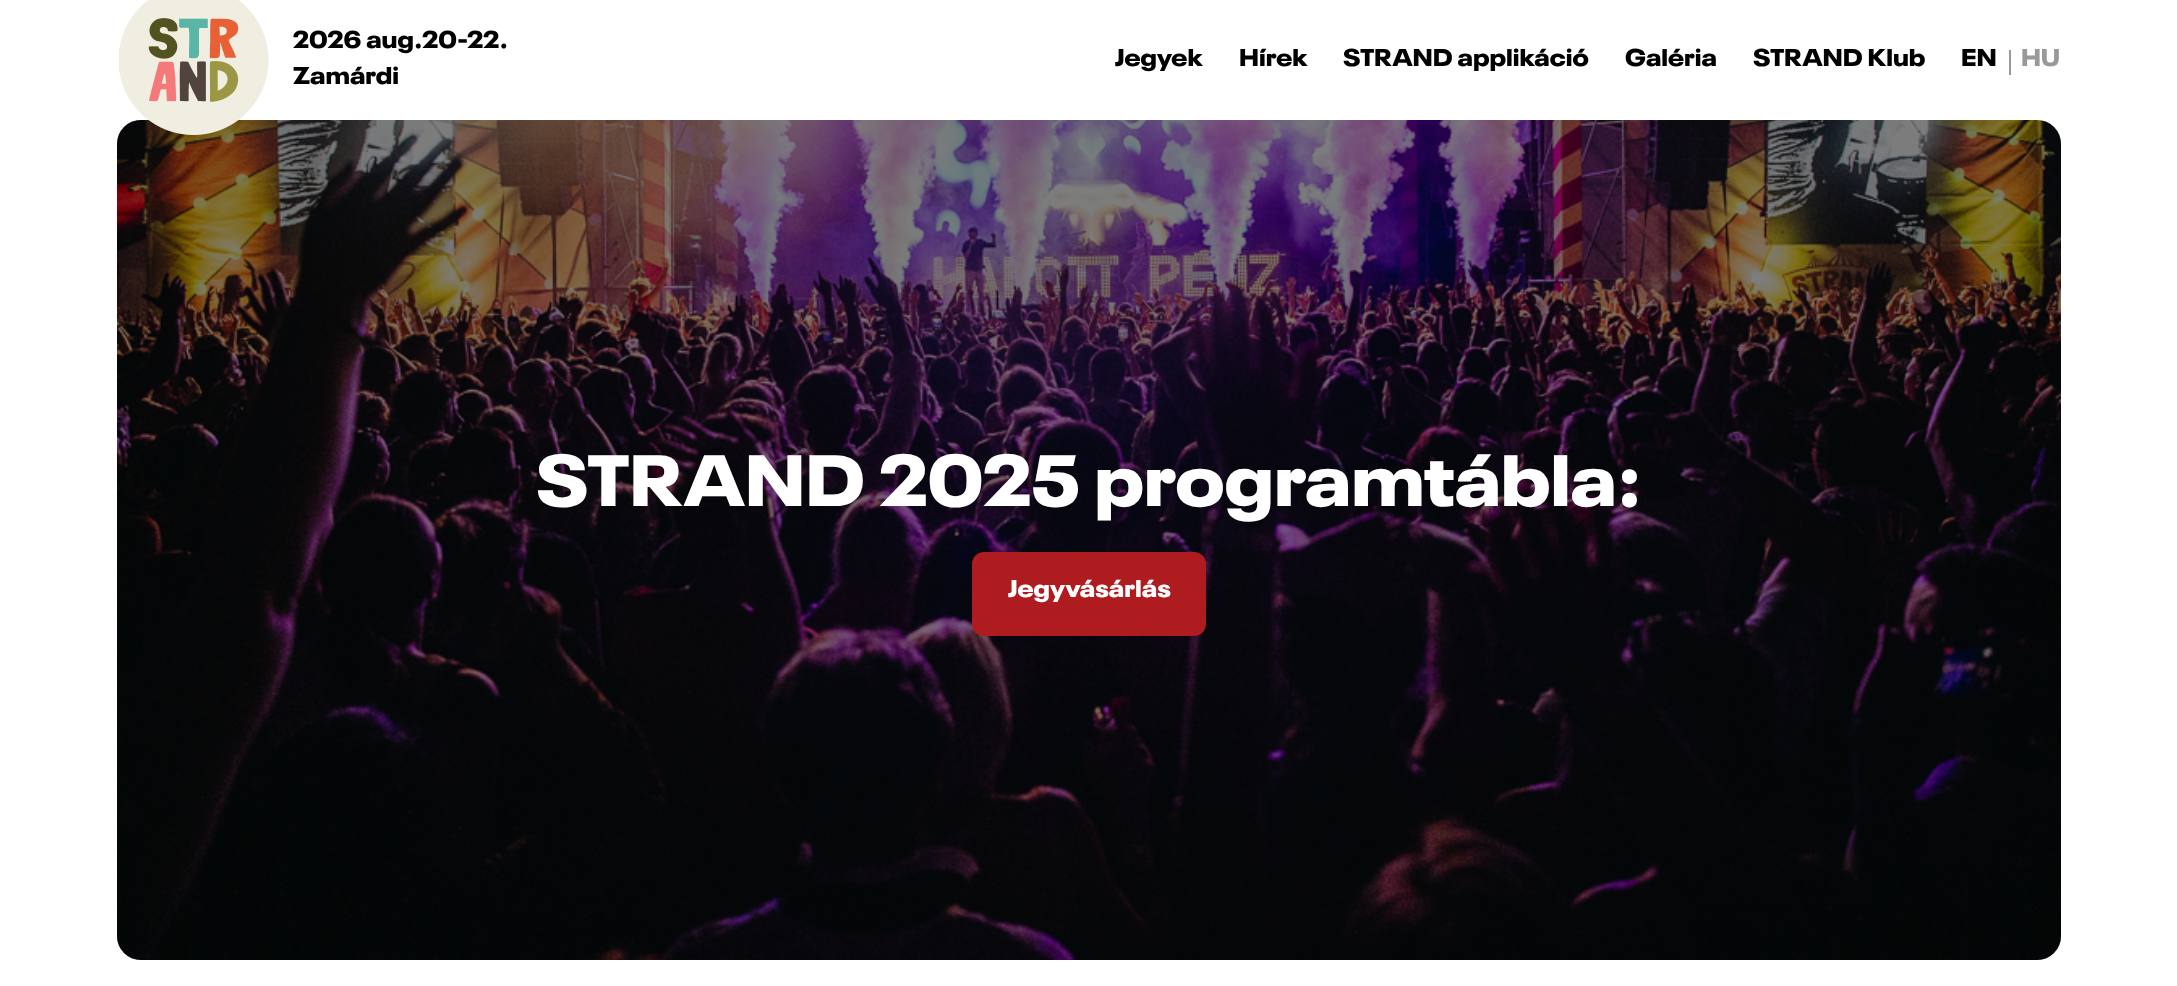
(async () => {
    const canvas = document.querySelector("canvas");
    canvas.width = 2177;
    canvas.height = 986;
    const context = canvas.getContext("2d");
    context.miterLimit = 4;
    context.fontKerning = "normal";
    function write(s, x, y, font, color) {
        context.font = font;
        context.fillStyle = color;
        context.fillText(s, x, y);
    }
    function block(x, y, w, h, color) {
        context.fillStyle = color;
        context.fillRect(x, y, w, h);
    }
    function card(x, y, w, h, r, color) {
        context.fillStyle = color;
        context.beginPath();
        context.roundRect(x, y, w, h, r);
        context.fill();
    }
    async function photo(src, x, y, w, h) {
        const img = new Image();
        img.src = src;
        await img.decode();
        context.drawImage(img, x, y, w, h);
    }

    block(0, 0, 2177, 986, "rgb(255, 255, 255)");
    await photo("media/2.png", 117, 120, 1944, 840);
    card(117, 120, 1944, 840, 24, "rgba(0, 0, 0, 0.5)");
    await photo("media/1.png", 119, 0, 150, 135);
    write("2026 aug.20-22.", 293, 48, "900 24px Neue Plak", "rgb(0, 0, 0)");
    write("Zamárdi", 293, 84, "900 24px Neue Plak", "rgb(0, 0, 0)");
    write("Jegyek", 1115, 66, "900 24px Neue Plak", "rgb(0, 0, 0)");
    write("Hírek", 1239, 66, "900 24px Neue Plak", "rgb(0, 0, 0)");
    write("STRAND applikáció", 1343, 66, "900 24px Neue Plak", "rgb(0, 0, 0)");
    write("Galéria", 1625, 66, "900 24px Neue Plak", "rgb(0, 0, 0)");
    write("STRAND Klub", 1753, 66, "900 24px Neue Plak", "rgb(0, 0, 0)");
    write("EN", 1961, 66, "900 24px Neue Plak", "rgb(0, 0, 0)");
    block(2009, 50, 2, 25, "rgb(153, 153, 153)");
    write("HU", 2021, 66, "900 24px Neue Plak", "rgb(153, 153, 153)");
    write("STRAND 2025 programtábla:", 536, 506, "900 72px Neue Plak", "rgb(255, 255, 255)");
    card(972, 552, 234, 84, 12, "rgb(174, 28, 32)");
    write("Jegyvásárlás", 1008, 597, "900 24px Neue Plak", "rgb(255, 255, 255)");
})();
